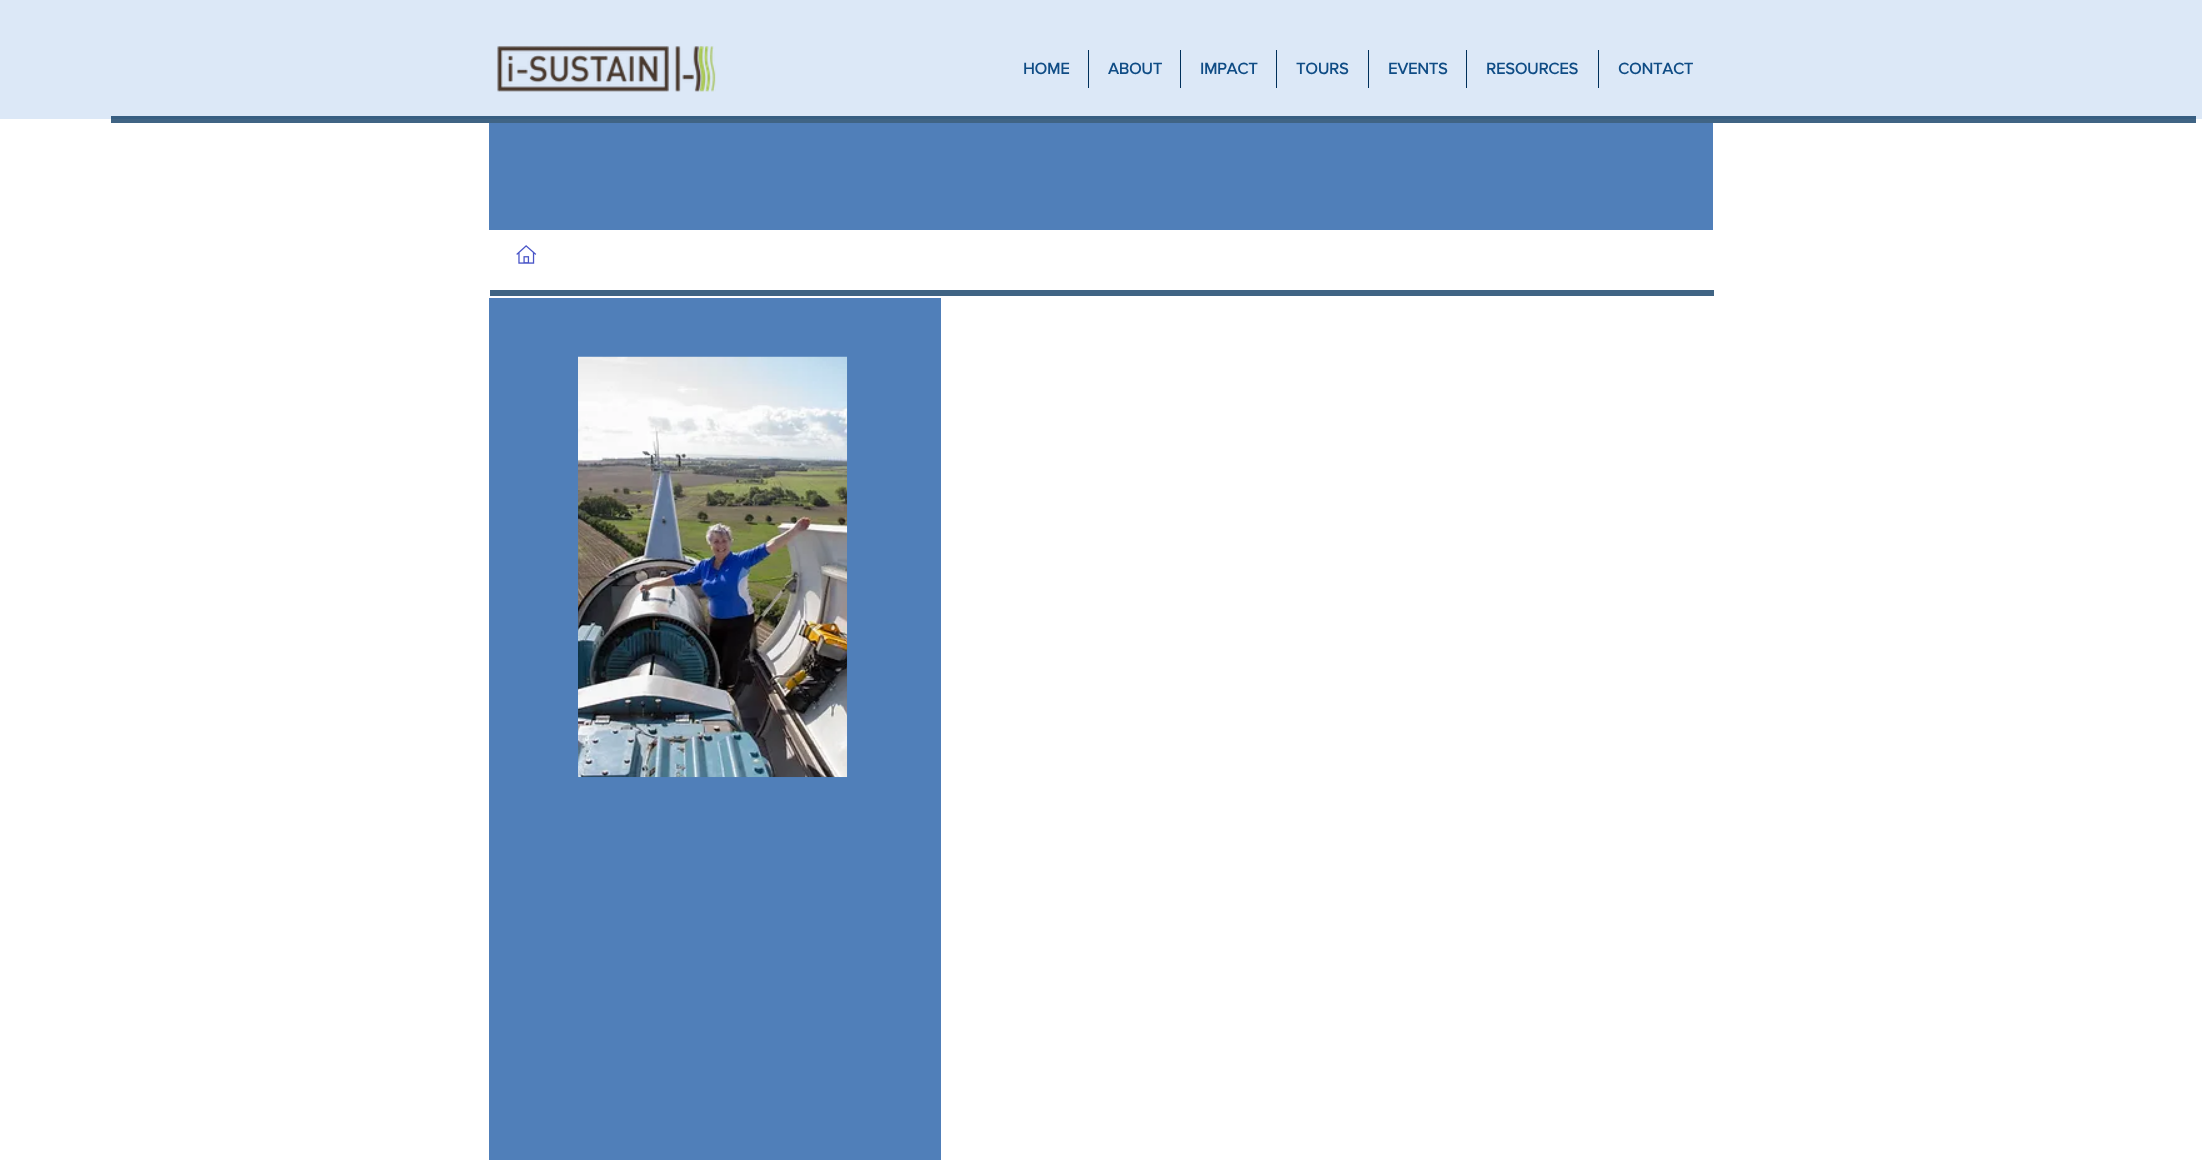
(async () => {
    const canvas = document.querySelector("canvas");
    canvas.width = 2202;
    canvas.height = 1160;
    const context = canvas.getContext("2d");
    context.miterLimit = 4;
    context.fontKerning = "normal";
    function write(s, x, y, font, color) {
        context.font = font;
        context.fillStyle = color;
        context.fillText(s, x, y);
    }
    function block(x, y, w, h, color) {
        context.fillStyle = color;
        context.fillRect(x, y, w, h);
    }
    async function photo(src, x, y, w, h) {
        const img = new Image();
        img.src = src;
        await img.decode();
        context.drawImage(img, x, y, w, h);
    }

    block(0, 0, 2202, 1160, "rgb(255, 255, 255)");
    block(111, 119, 2085, 4, "rgb(64, 100, 132)");
    block(0, 0, 2202, 119, "rgb(220, 232, 247)");
    block(111, 116, 2085, 3, "rgb(55, 94, 130)");
    await photo("media/1.png", 497, 46, 219, 46);
    write("HOME", 1023, 74, "bold 16.25px 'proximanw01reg'", "rgb(15, 76, 133)");
    block(1088, 50, 1, 38, "rgb(0, 48, 91)");
    write("ABOUT", 1108, 74, "bold 16.25px 'proximanw01reg'", "rgb(15, 76, 133)");
    block(1180, 50, 1, 38, "rgb(0, 48, 91)");
    write("IMPACT", 1200, 74, "bold 16.25px 'proximanw01reg'", "rgb(15, 76, 133)");
    block(1276, 50, 1, 38, "rgb(0, 48, 91)");
    write("TOURS", 1296, 74, "bold 16.25px 'proximanw01reg'", "rgb(15, 76, 133)");
    block(1368, 50, 1, 38, "rgb(0, 48, 91)");
    write("EVENTS", 1388, 74, "bold 16.25px 'proximanw01reg'", "rgb(15, 76, 133)");
    block(1466, 50, 1, 38, "rgb(0, 48, 91)");
    write("RESOURCES", 1486, 74, "bold 16.25px 'proximanw01reg'", "rgb(15, 76, 133)");
    block(1598, 50, 1, 38, "rgb(0, 48, 91)");
    write("CONTACT", 1618, 74, "bold 16.25px 'proximanw01reg'", "rgb(15, 76, 133)");
    block(489, 123, 1224, 107, "rgb(80, 127, 185)");
    await photo("media/2.png", 516, 245, 21, 19);
    block(490, 290, 1224, 6, "rgb(64, 100, 132)");
    block(489, 298, 452, 862, "rgb(80, 127, 185)");
    await photo("media/3.png", 578, 356, 270, 422);
})();
